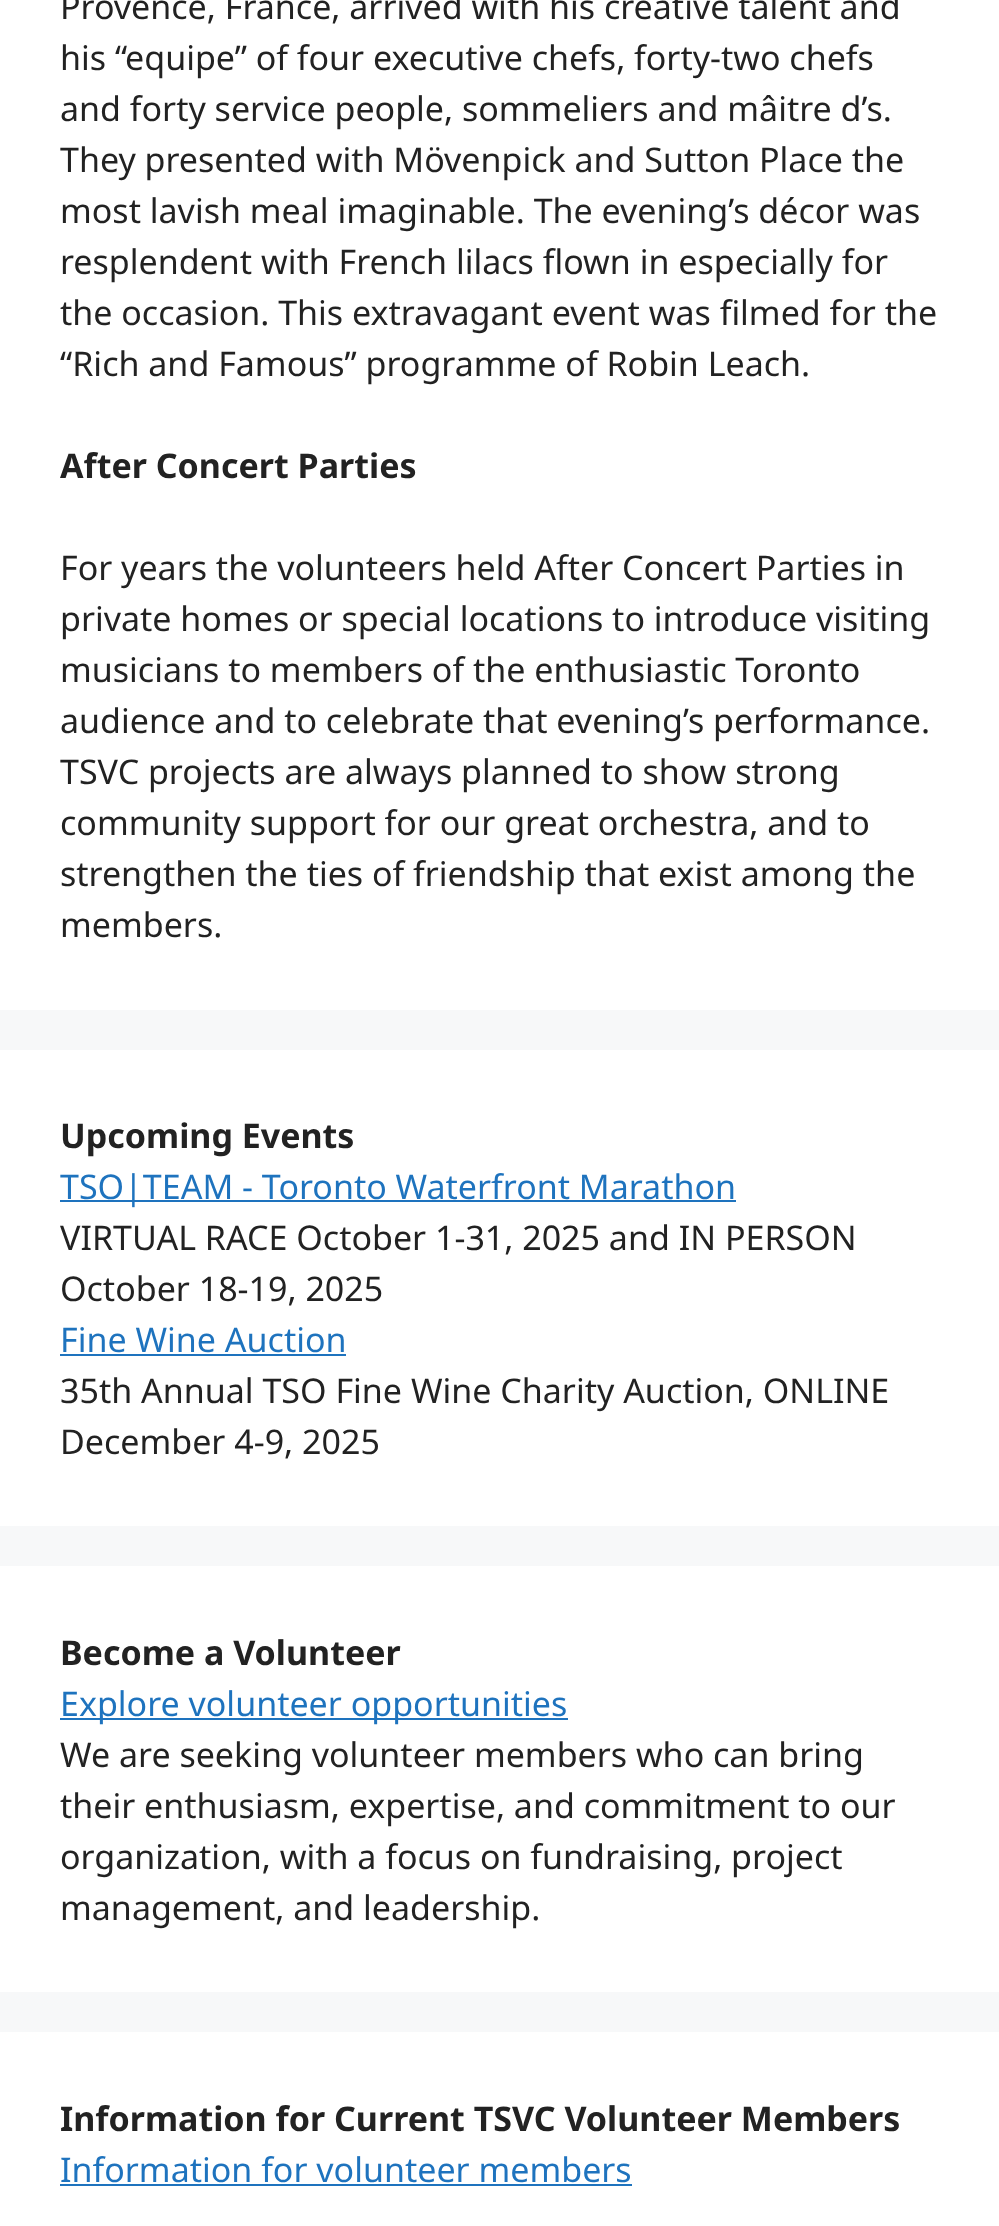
(async () => {
    const canvas = document.querySelector("canvas");
    canvas.width = 999;
    canvas.height = 2226;
    const context = canvas.getContext("2d");
    context.miterLimit = 4;
    context.fontKerning = "normal";
    function write(s, x, y, font, color) {
        context.font = font;
        context.fillStyle = color;
        context.fillText(s, x, y);
    }
    function block(x, y, w, h, color) {
        context.fillStyle = color;
        context.fillRect(x, y, w, h);
    }

    block(0, 0, 999, 2226, "rgb(247, 248, 249)");
    block(0, 0, 999, 1010, "rgb(255, 255, 255)");
    write("Provence, France, arrived with his creative talent and", 60, 19, "34px Noto Sans", "rgb(34, 34, 34)");
    write("his “equipe” of four executive chefs, forty-two chefs", 60, 70, "34px Noto Sans", "rgb(34, 34, 34)");
    write("and forty service people, sommeliers and mâitre d’s.", 60, 121, "34px Noto Sans", "rgb(34, 34, 34)");
    write("They presented with Mövenpick and Sutton Place the", 60, 172, "34px Noto Sans", "rgb(34, 34, 34)");
    write("most lavish meal imaginable. The evening’s décor was", 60, 223, "34px Noto Sans", "rgb(34, 34, 34)");
    write("resplendent with French lilacs flown in especially for", 60, 274, "34px Noto Sans", "rgb(34, 34, 34)");
    write("the occasion. This extravagant event was filmed for the", 60, 325, "34px Noto Sans", "rgb(34, 34, 34)");
    write("“Rich and Famous” programme of Robin Leach.", 60, 376, "34px Noto Sans", "rgb(34, 34, 34)");
    write("After Concert Parties", 60, 478, "bold 34px Noto Sans", "rgb(34, 34, 34)");
    write("For years the volunteers held After Concert Parties in", 60, 580, "34px Noto Sans", "rgb(34, 34, 34)");
    write("private homes or special locations to introduce visiting", 60, 631, "34px Noto Sans", "rgb(34, 34, 34)");
    write("musicians to members of the enthusiastic Toronto", 60, 682, "34px Noto Sans", "rgb(34, 34, 34)");
    write("audience and to celebrate that evening’s performance.", 60, 733, "34px Noto Sans", "rgb(34, 34, 34)");
    write("TSVC projects are always planned to show strong", 60, 784, "34px Noto Sans", "rgb(34, 34, 34)");
    write("community support for our great orchestra, and to", 60, 835, "34px Noto Sans", "rgb(34, 34, 34)");
    write("strengthen the ties of friendship that exist among the", 60, 886, "34px Noto Sans", "rgb(34, 34, 34)");
    write("members.", 60, 937, "34px Noto Sans", "rgb(34, 34, 34)");
    block(0, 1050, 999, 476, "rgb(255, 255, 255)");
    write("Upcoming Events", 60, 1148, "bold 34px Noto Sans", "rgb(34, 34, 34)");
    block(60, 1200, 676, 2, "rgb(30, 115, 190)");
    write("TSO|TEAM - Toronto Waterfront Marathon", 60, 1199, "34px Noto Sans", "rgb(30, 115, 190)");
    write("VIRTUAL RACE October 1-31, 2025 and IN PERSON", 60, 1250, "34px Noto Sans", "rgb(34, 34, 34)");
    write("October 18-19, 2025", 60, 1301, "34px Noto Sans", "rgb(34, 34, 34)");
    write("Fine Wine Auction", 60, 1352, "34px Noto Sans", "rgb(30, 115, 190)");
    block(60, 1354, 286, 2, "rgb(30, 115, 190)");
    write("35th Annual TSO Fine Wine Charity Auction, ONLINE", 60, 1403, "34px Noto Sans", "rgb(34, 34, 34)");
    write("December 4-9, 2025", 60, 1454, "34px Noto Sans", "rgb(34, 34, 34)");
    block(0, 1566, 999, 426, "rgb(255, 255, 255)");
    write("Become a Volunteer", 60, 1665, "bold 34px Noto Sans", "rgb(34, 34, 34)");
    block(60, 1718, 508, 2, "rgb(30, 115, 190)");
    write("Explore volunteer opportunities", 60, 1716, "34px Noto Sans", "rgb(30, 115, 190)");
    write("We are seeking volunteer members who can bring", 60, 1767, "34px Noto Sans", "rgb(34, 34, 34)");
    write("their enthusiasm, expertise, and commitment to our", 60, 1818, "34px Noto Sans", "rgb(34, 34, 34)");
    write("organization, with a focus on fundraising, project", 60, 1869, "34px Noto Sans", "rgb(34, 34, 34)");
    write("management, and leadership.", 60, 1920, "34px Noto Sans", "rgb(34, 34, 34)");
    block(0, 2032, 999, 194, "rgb(255, 255, 255)");
    write("Information for Current TSVC Volunteer Members", 60, 2131, "bold 34px Noto Sans", "rgb(34, 34, 34)");
    write("Information for volunteer members", 60, 2182, "34px Noto Sans", "rgb(30, 115, 190)");
    block(60, 2184, 572, 2, "rgb(30, 115, 190)");
})();
